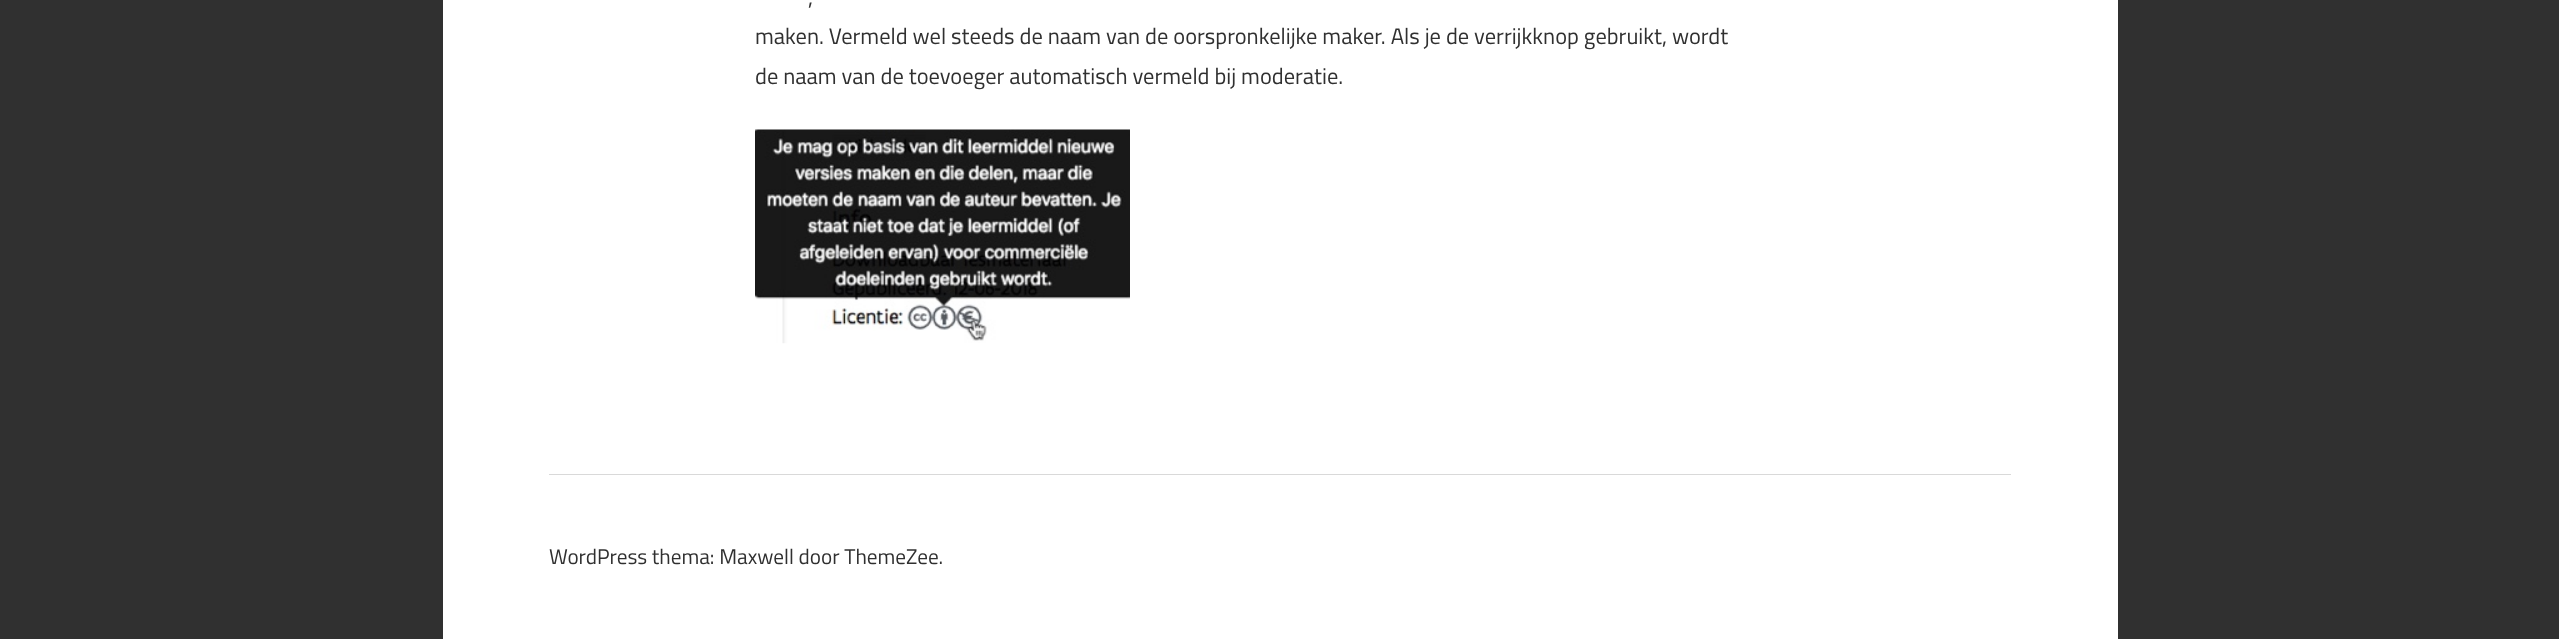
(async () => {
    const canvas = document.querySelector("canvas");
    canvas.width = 2559;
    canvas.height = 639;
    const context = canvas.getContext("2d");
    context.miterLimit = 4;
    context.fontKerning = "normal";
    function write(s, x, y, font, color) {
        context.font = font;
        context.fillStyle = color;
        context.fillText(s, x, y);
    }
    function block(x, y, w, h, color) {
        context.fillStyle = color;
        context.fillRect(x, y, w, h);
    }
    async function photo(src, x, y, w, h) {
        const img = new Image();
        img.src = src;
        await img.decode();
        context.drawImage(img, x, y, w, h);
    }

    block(0, 0, 2559, 639, "rgb(48, 48, 48)");
    block(443, 0, 1675, 639, "rgb(255, 255, 255)");
    write(",", 808, 5, "22.5px Titillium Web", "rgb(48, 48, 48)");
    write("maken. Vermeld wel steeds de naam van de oorspronkelijke maker. Als je de verrijkknop gebruikt, wordt", 755, 44, "22.5px Titillium Web", "rgb(48, 48, 48)");
    write("de naam van de toevoeger automatisch vermeld bij moderatie.", 755, 84, "22.5px Titillium Web", "rgb(48, 48, 48)");
    await photo("media/1.png", 755, 129, 375, 215);
    block(549, 474, 1462, 1, "rgb(217, 217, 217)");
    write("WordPress thema: Maxwell door ThemeZee.", 549, 564, "21.25px Titillium Web", "rgb(48, 48, 48)");
})();
